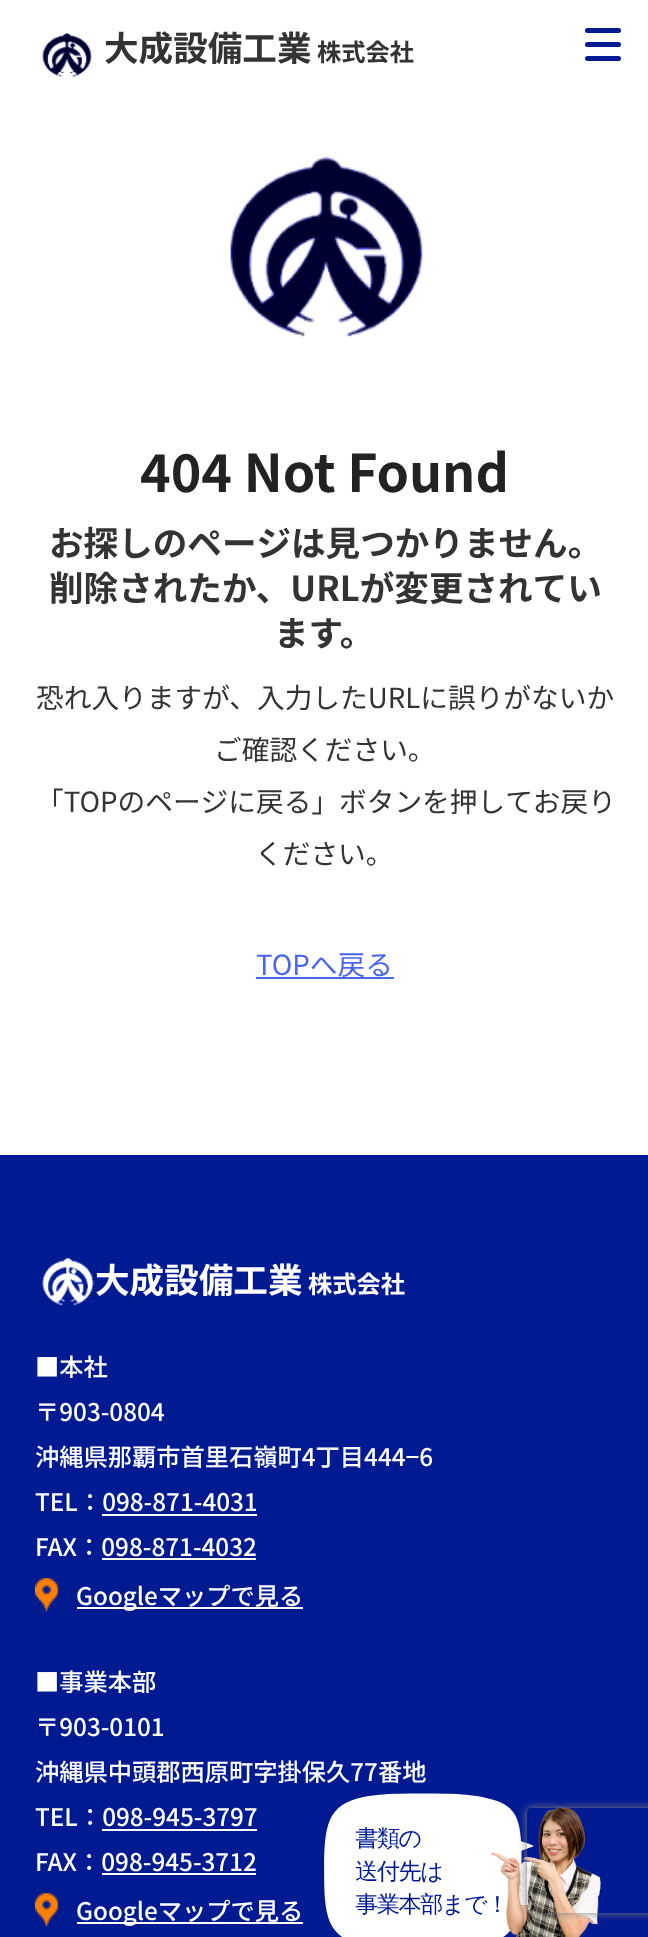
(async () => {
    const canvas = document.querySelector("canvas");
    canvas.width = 648;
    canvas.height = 1937;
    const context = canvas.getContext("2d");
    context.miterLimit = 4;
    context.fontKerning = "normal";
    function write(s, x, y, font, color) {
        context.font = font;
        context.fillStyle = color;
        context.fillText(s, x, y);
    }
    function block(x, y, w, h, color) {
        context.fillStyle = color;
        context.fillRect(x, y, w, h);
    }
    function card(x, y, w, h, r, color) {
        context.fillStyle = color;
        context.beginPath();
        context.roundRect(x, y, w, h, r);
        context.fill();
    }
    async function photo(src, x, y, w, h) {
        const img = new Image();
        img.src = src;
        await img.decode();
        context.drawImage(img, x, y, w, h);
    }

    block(0, 0, 648, 1937, "rgb(255, 255, 255)");
    await photo("media/1.png", 42, 33, 50, 45);
    write("大成設備工業", 104, 61, "bold 34.6px Noto Sans JP", "rgb(51, 51, 51)");
    write("株式会社", 317, 61, "bold 24.25px Noto Sans JP", "rgb(51, 51, 51)");
    card(585, 28, 36, 5, 2.5, "rgb(0, 26, 146)");
    card(585, 42, 36, 5, 2.5, "rgb(0, 26, 146)");
    card(585, 56, 36, 5, 2.5, "rgb(0, 26, 146)");
    await photo("media/2.png", 230, 157, 193, 180);
    write("404 Not Found", 140, 492, "bold 52px Noto Sans JP", "rgb(34, 34, 34)");
    write("お探しのページは見つかりません。", 49, 556, "bold 34.6px Noto Sans JP", "rgb(51, 51, 51)");
    write("削除されたか、URLが変更されてい", 49, 601, "bold 34.6px Noto Sans JP", "rgb(51, 51, 51)");
    write("ます。", 274, 646, "bold 34.6px Noto Sans JP", "rgb(51, 51, 51)");
    write("恐れ入りますが、入力したURLに誤りがないか", 36, 708, "27.7px Noto Sans JP", "rgb(51, 51, 51)");
    write("ご確認ください。", 214, 760, "27.7px Noto Sans JP", "rgb(51, 51, 51)");
    write("「TOPのページに戻る」ボタンを押してお戻り", 36, 812, "27.7px Noto Sans JP", "rgb(51, 51, 51)");
    write("ください。", 255, 864, "27.7px Noto Sans JP", "rgb(51, 51, 51)");
    block(256, 977, 138, 2, "rgb(74, 102, 232)");
    write("TOPへ戻る", 256, 975, "27.7px Noto Sans JP", "rgb(74, 102, 232)");
    block(0, 1155, 648, 782, "rgb(0, 26, 146)");
    await photo("media/3.png", 42, 1258, 52, 48);
    write("大成設備工業", 95, 1293, "bold 34.6px Noto Sans JP", "rgb(255, 255, 255)");
    write("株式会社", 308, 1293, "bold 24.25px Noto Sans JP", "rgb(255, 255, 255)");
    write("■本社", 35, 1376, "500 24.25px Noto Sans JP", "rgb(255, 255, 255)");
    write("〒903-0804", 35, 1421, "500 24.25px Noto Sans JP", "rgb(255, 255, 255)");
    write("沖縄県那覇市首里石嶺町4丁目444−6", 35, 1466, "500 24.25px Noto Sans JP", "rgb(255, 255, 255)");
    write("TEL：098-871-4031", 35, 1511, "500 24.25px Noto Sans JP", "rgb(255, 255, 255)");
    block(102, 1514, 155, 2, "rgb(255, 255, 255)");
    write("FAX：098-871-4032", 35, 1556, "500 24.25px Noto Sans JP", "rgb(255, 255, 255)");
    block(102, 1558, 154, 2, "rgb(255, 255, 255)");
    await photo("media/4.png", 35, 1578, 24, 34);
    block(77, 1607, 226, 2, "rgb(255, 255, 255)");
    write("Googleマップで見る", 76, 1605, "500 24.25px Noto Sans JP", "rgb(255, 255, 255)");
    write("■事業本部", 35, 1691, "500 24.25px Noto Sans JP", "rgb(255, 255, 255)");
    write("〒903-0101", 35, 1736, "500 24.25px Noto Sans JP", "rgb(255, 255, 255)");
    write("沖縄県中頭郡西原町字掛保久77番地", 35, 1781, "500 24.25px Noto Sans JP", "rgb(255, 255, 255)");
    write("TEL：098-945-3797", 35, 1826, "500 24.25px Noto Sans JP", "rgb(255, 255, 255)");
    await photo("media/5.png", 324, 1793, 277, 144);
    block(102, 1829, 155, 2, "rgb(255, 255, 255)");
    write("FAX：098-945-3712", 35, 1871, "500 24.25px Noto Sans JP", "rgb(255, 255, 255)");
    block(102, 1873, 154, 2, "rgb(255, 255, 255)");
    await photo("media/4.png", 35, 1893, 24, 34);
    block(77, 1922, 226, 2, "rgb(255, 255, 255)");
    write("Googleマップで見る", 76, 1920, "500 24.25px Noto Sans JP", "rgb(255, 255, 255)");
    context.save();
    context.beginPath();
    context.moveTo(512, 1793);
    context.lineTo(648, 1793);
    context.lineTo(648, 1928);
    context.lineTo(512, 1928);
    context.closePath();
    context.moveTo(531, 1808);
    context.lineTo(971, 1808);
    context.bezierCurveTo(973, 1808, 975, 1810, 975, 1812);
    context.lineTo(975, 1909);
    context.bezierCurveTo(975, 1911, 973, 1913, 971, 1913);
    context.lineTo(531, 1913);
    context.bezierCurveTo(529, 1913, 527, 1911, 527, 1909);
    context.lineTo(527, 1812);
    context.bezierCurveTo(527, 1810, 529, 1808, 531, 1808);
    context.closePath();
    context.clip("evenodd");
    context.fillStyle = "rgb(128, 128, 128)";
    context.filter = "blur(4.5px)";
    context.beginPath();
    context.roundRect(527, 1808, 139, 105, 4);
    context.fill();
    context.filter = "none";
    context.restore();
})();
